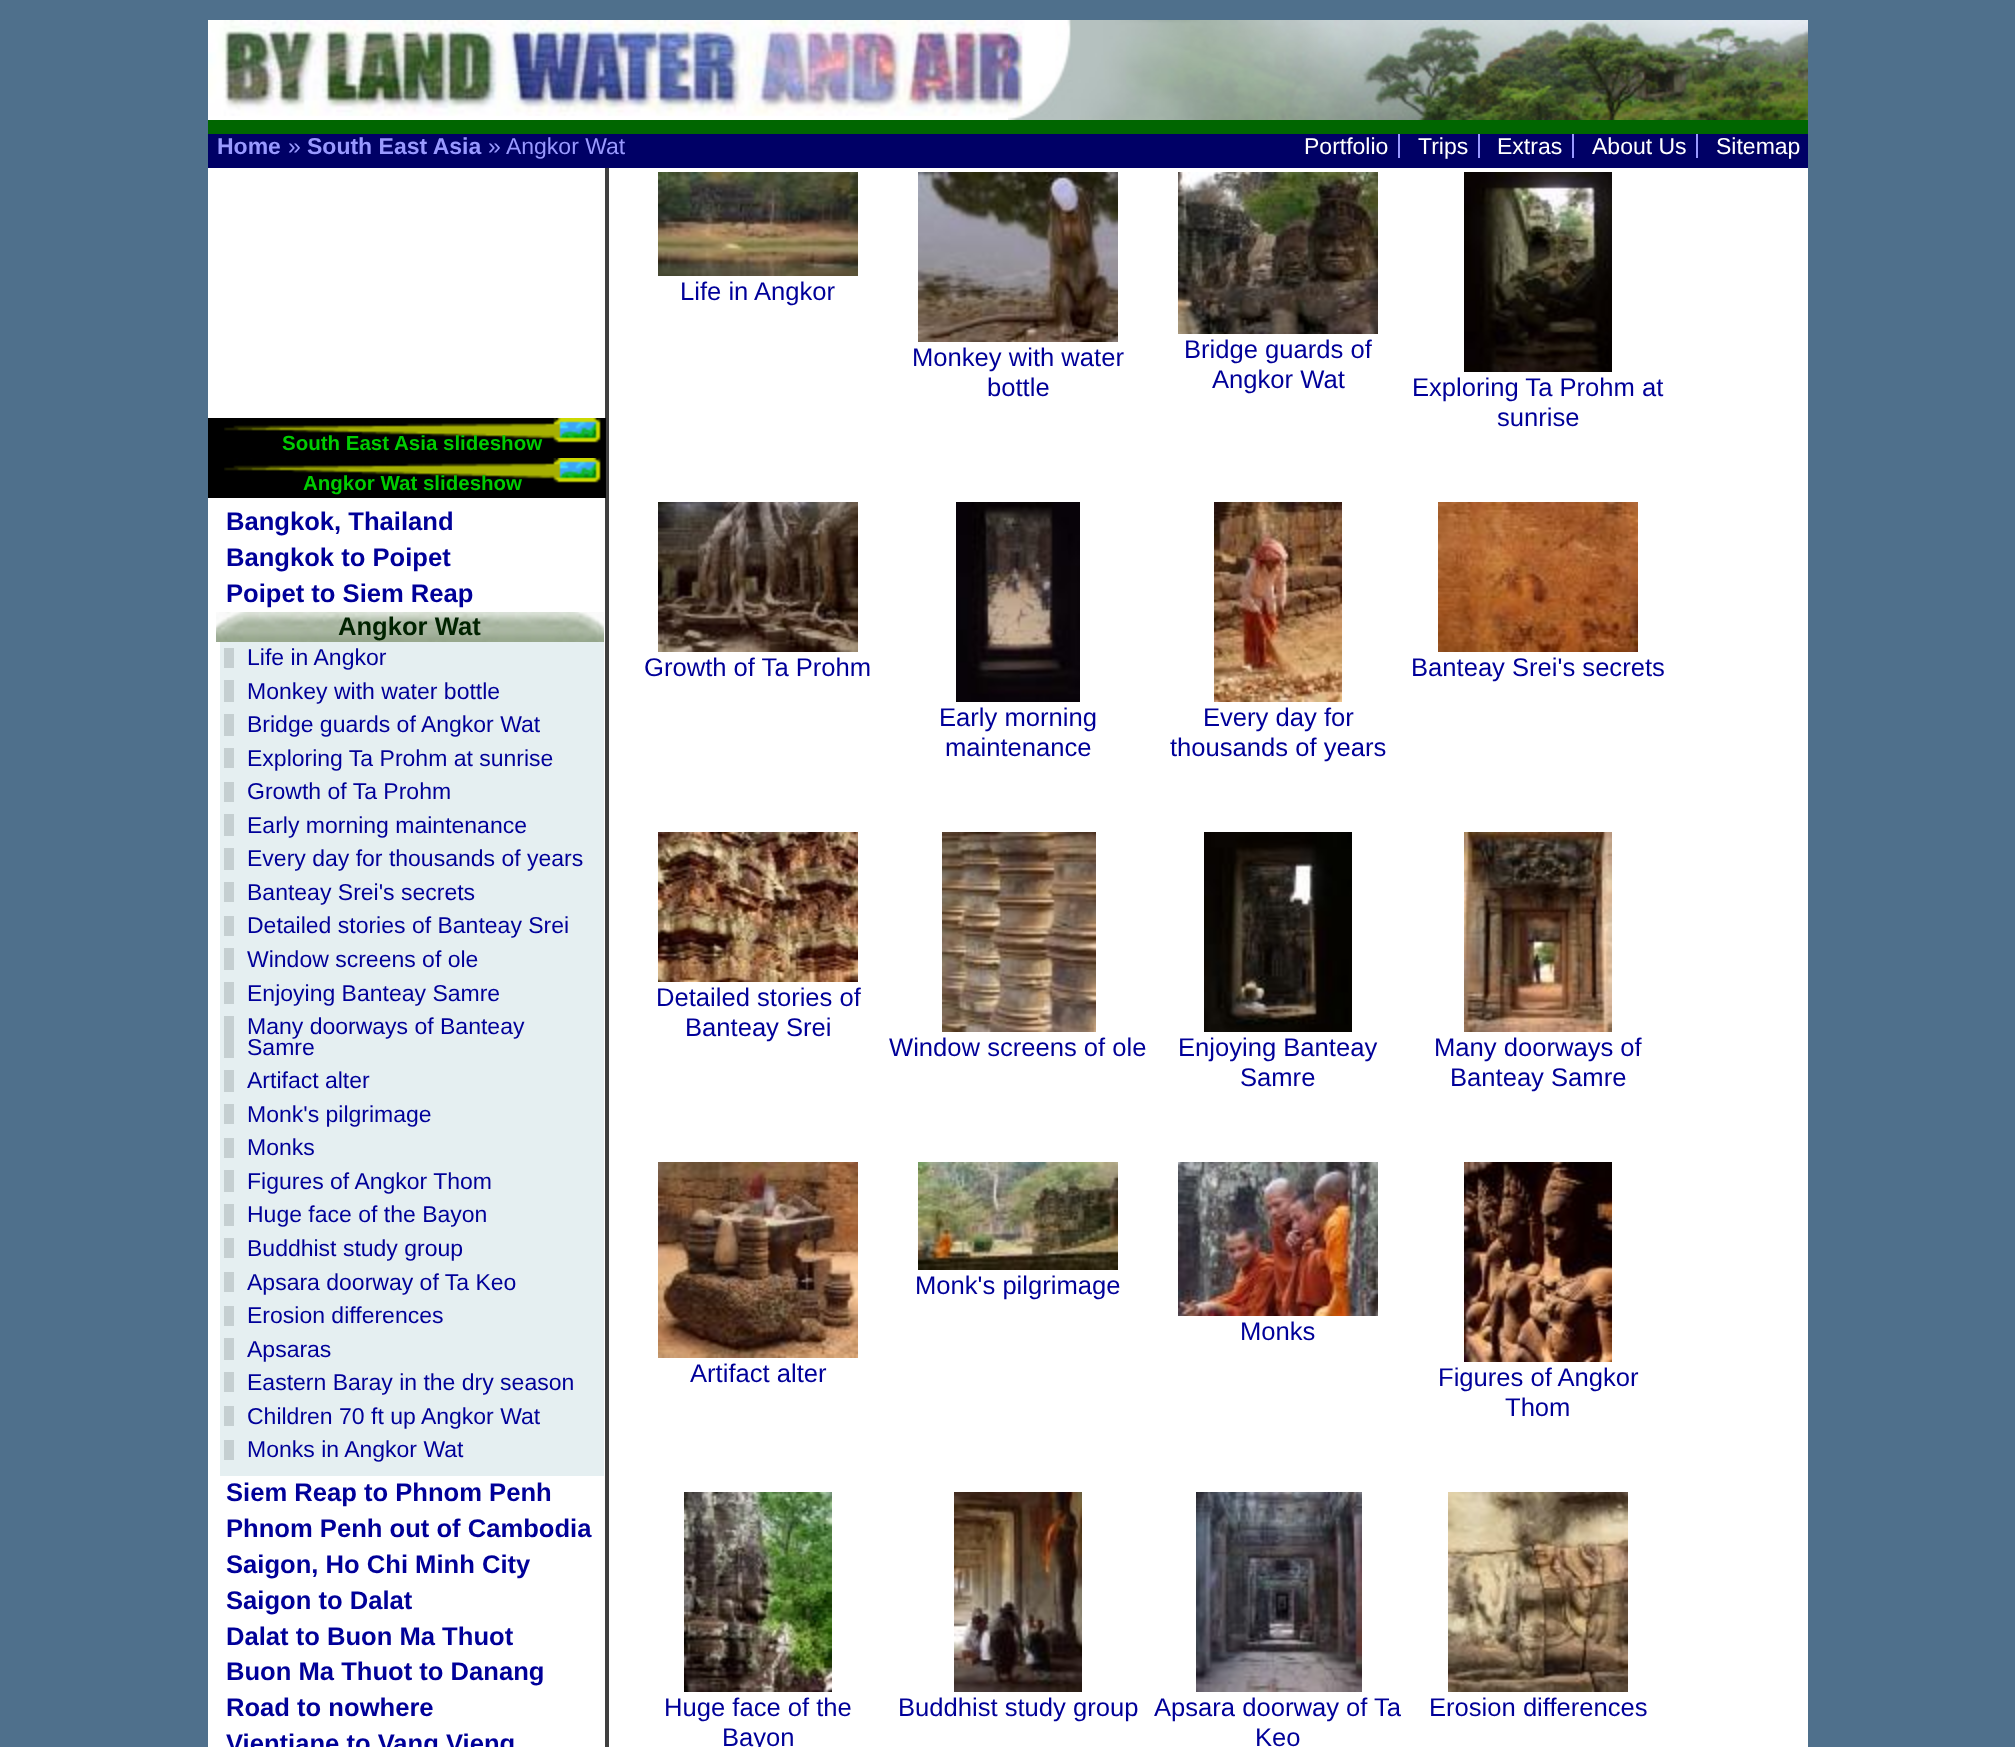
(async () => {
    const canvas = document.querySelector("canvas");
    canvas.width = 2015;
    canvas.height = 1747;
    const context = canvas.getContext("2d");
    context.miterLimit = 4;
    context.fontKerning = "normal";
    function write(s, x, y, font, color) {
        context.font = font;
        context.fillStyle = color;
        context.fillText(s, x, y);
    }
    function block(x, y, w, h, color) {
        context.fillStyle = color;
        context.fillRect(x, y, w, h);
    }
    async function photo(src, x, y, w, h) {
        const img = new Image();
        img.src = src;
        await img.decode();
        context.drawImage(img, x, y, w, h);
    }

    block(0, 0, 2015, 1747, "rgb(79, 112, 140)");
    block(208, 168, 1600, 1579, "rgb(255, 255, 255)");
    block(605, 168, 4, 1579, "rgb(63, 63, 63)");
    block(208, 116, 800, 4, "rgb(255, 255, 255)");
    await photo("media/1.png", 208, 20, 800, 96);
    await photo("media/2.png", 1008, 20, 70, 100);
    await photo("media/3.png", 1078, 20, 730, 100);
    block(208, 120, 1600, 14, "rgb(0, 102, 0)");
    block(208, 134, 1600, 34, "rgb(0, 0, 102)");
    write("Home", 217, 154, "bold 23px Liberation Sans", "rgb(153, 153, 255)");
    write("»", 288, 154, "23px Liberation Sans", "rgb(153, 153, 255)");
    write("South East Asia", 307, 154, "bold 23px Liberation Sans", "rgb(153, 153, 255)");
    write("» Angkor Wat", 488, 154, "23px Liberation Sans", "rgb(153, 153, 255)");
    write("Portfolio", 1304, 154, "23px Liberation Sans", "rgb(255, 255, 255)");
    block(1398, 134, 2, 24, "rgb(153, 153, 255)");
    write("Trips", 1418, 154, "23px Liberation Sans", "rgb(255, 255, 255)");
    block(1478, 134, 2, 24, "rgb(153, 153, 255)");
    write("Extras", 1497, 154, "23px Liberation Sans", "rgb(255, 255, 255)");
    block(1572, 134, 2, 24, "rgb(153, 153, 255)");
    write("About Us", 1592, 154, "23px Liberation Sans", "rgb(255, 255, 255)");
    block(1696, 134, 2, 24, "rgb(153, 153, 255)");
    write("Sitemap", 1716, 154, "23px Liberation Sans", "rgb(255, 255, 255)");
    block(208, 418, 398, 80, "rgb(0, 0, 0)");
    await photo("media/4.png", 224, 418, 377, 25);
    write("South East Asia slideshow", 282, 450, "bold 20.5px Liberation Sans", "rgb(0, 204, 0)");
    await photo("media/4.png", 224, 458, 377, 25);
    write("Angkor Wat slideshow", 303, 490, "bold 20.5px Liberation Sans", "rgb(0, 204, 0)");
    write("Bangkok, Thailand", 226, 530, "bold 25.6px Liberation Sans", "rgb(0, 0, 153)");
    write("Bangkok to Poipet", 226, 566, "bold 25.6px Liberation Sans", "rgb(0, 0, 153)");
    write("Poipet to Siem Reap", 226, 602, "bold 25.6px Liberation Sans", "rgb(0, 0, 153)");
    await photo("media/5.png", 216, 612, 388, 30);
    write("Angkor Wat", 338, 635, "bold 25.6px Liberation Sans", "rgb(0, 34, 0)");
    block(220, 642, 384, 834, "rgb(229, 239, 241)");
    block(224, 648, 10, 20, "rgb(197, 207, 209)");
    write("Life in Angkor", 247, 665, "23px Liberation Sans", "rgb(0, 0, 153)");
    block(224, 680, 10, 22, "rgb(197, 207, 209)");
    write("Monkey with water bottle", 247, 699, "23px Liberation Sans", "rgb(0, 0, 153)");
    block(224, 714, 10, 22, "rgb(197, 207, 209)");
    write("Bridge guards of Angkor Wat", 247, 732, "23px Liberation Sans", "rgb(0, 0, 153)");
    block(224, 748, 10, 20, "rgb(197, 207, 209)");
    write("Exploring Ta Prohm at sunrise", 247, 766, "23px Liberation Sans", "rgb(0, 0, 153)");
    block(224, 782, 10, 20, "rgb(197, 207, 209)");
    write("Growth of Ta Prohm", 247, 799, "23px Liberation Sans", "rgb(0, 0, 153)");
    block(224, 814, 10, 22, "rgb(197, 207, 209)");
    write("Early morning maintenance", 247, 833, "23px Liberation Sans", "rgb(0, 0, 153)");
    block(224, 848, 10, 22, "rgb(197, 207, 209)");
    write("Every day for thousands of years", 247, 866, "23px Liberation Sans", "rgb(0, 0, 153)");
    block(224, 882, 10, 20, "rgb(197, 207, 209)");
    write("Banteay Srei's secrets", 247, 900, "23px Liberation Sans", "rgb(0, 0, 153)");
    block(224, 916, 10, 20, "rgb(197, 207, 209)");
    write("Detailed stories of Banteay Srei", 247, 933, "23px Liberation Sans", "rgb(0, 0, 153)");
    block(224, 948, 10, 22, "rgb(197, 207, 209)");
    write("Window screens of ole", 247, 967, "23px Liberation Sans", "rgb(0, 0, 153)");
    block(224, 982, 10, 22, "rgb(197, 207, 209)");
    write("Enjoying Banteay Samre", 247, 1001, "23px Liberation Sans", "rgb(0, 0, 153)");
    block(224, 1016, 10, 42, "rgb(197, 207, 209)");
    write("Many doorways of Banteay", 247, 1034, "23px Liberation Sans", "rgb(0, 0, 153)");
    write("Samre", 247, 1055, "23px Liberation Sans", "rgb(0, 0, 153)");
    block(224, 1070, 10, 22, "rgb(197, 207, 209)");
    write("Artifact alter", 247, 1088, "23px Liberation Sans", "rgb(0, 0, 153)");
    block(224, 1104, 10, 20, "rgb(197, 207, 209)");
    write("Monk's pilgrimage", 247, 1122, "23px Liberation Sans", "rgb(0, 0, 153)");
    block(224, 1138, 10, 20, "rgb(197, 207, 209)");
    write("Monks", 247, 1155, "23px Liberation Sans", "rgb(0, 0, 153)");
    block(224, 1170, 10, 22, "rgb(197, 207, 209)");
    write("Figures of Angkor Thom", 247, 1189, "23px Liberation Sans", "rgb(0, 0, 153)");
    block(224, 1204, 10, 22, "rgb(197, 207, 209)");
    write("Huge face of the Bayon", 247, 1222, "23px Liberation Sans", "rgb(0, 0, 153)");
    block(224, 1238, 10, 20, "rgb(197, 207, 209)");
    write("Buddhist study group", 247, 1256, "23px Liberation Sans", "rgb(0, 0, 153)");
    block(224, 1272, 10, 20, "rgb(197, 207, 209)");
    write("Apsara doorway of Ta Keo", 247, 1290, "23px Liberation Sans", "rgb(0, 0, 153)");
    block(224, 1306, 10, 20, "rgb(197, 207, 209)");
    write("Erosion differences", 247, 1323, "23px Liberation Sans", "rgb(0, 0, 153)");
    block(224, 1338, 10, 22, "rgb(197, 207, 209)");
    write("Apsaras", 247, 1357, "23px Liberation Sans", "rgb(0, 0, 153)");
    block(224, 1372, 10, 20, "rgb(197, 207, 209)");
    write("Eastern Baray in the dry season", 247, 1390, "23px Liberation Sans", "rgb(0, 0, 153)");
    block(224, 1406, 10, 20, "rgb(197, 207, 209)");
    write("Children 70 ft up Angkor Wat", 247, 1424, "23px Liberation Sans", "rgb(0, 0, 153)");
    block(224, 1440, 10, 20, "rgb(197, 207, 209)");
    write("Monks in Angkor Wat", 247, 1457, "23px Liberation Sans", "rgb(0, 0, 153)");
    write("Siem Reap to Phnom Penh", 226, 1501, "bold 25.6px Liberation Sans", "rgb(0, 0, 153)");
    write("Phnom Penh out of Cambodia", 226, 1537, "bold 25.6px Liberation Sans", "rgb(0, 0, 153)");
    write("Saigon, Ho Chi Minh City", 226, 1573, "bold 25.6px Liberation Sans", "rgb(0, 0, 153)");
    write("Saigon to Dalat", 226, 1609, "bold 25.6px Liberation Sans", "rgb(0, 0, 153)");
    write("Dalat to Buon Ma Thuot", 226, 1645, "bold 25.6px Liberation Sans", "rgb(0, 0, 153)");
    write("Buon Ma Thuot to Danang", 226, 1680, "bold 25.6px Liberation Sans", "rgb(0, 0, 153)");
    write("Road to nowhere", 226, 1716, "bold 25.6px Liberation Sans", "rgb(0, 0, 153)");
    write("Vientiane to Vang Vieng", 226, 1752, "bold 25.6px Liberation Sans", "rgb(0, 0, 153)");
    await photo("media/6.png", 658, 172, 200, 104);
    write("Life in Angkor", 680, 300, "25.6px Liberation Sans", "rgb(0, 0, 153)");
    await photo("media/7.png", 918, 172, 200, 170);
    write("Monkey with water", 912, 366, "25.6px Liberation Sans", "rgb(0, 0, 153)");
    write("bottle", 987, 396, "25.6px Liberation Sans", "rgb(0, 0, 153)");
    await photo("media/8.png", 1178, 172, 200, 162);
    write("Bridge guards of", 1184, 358, "25.6px Liberation Sans", "rgb(0, 0, 153)");
    write("Angkor Wat", 1212, 388, "25.6px Liberation Sans", "rgb(0, 0, 153)");
    await photo("media/9.png", 1464, 172, 148, 200);
    write("Exploring Ta Prohm at", 1412, 396, "25.6px Liberation Sans", "rgb(0, 0, 153)");
    write("sunrise", 1497, 426, "25.6px Liberation Sans", "rgb(0, 0, 153)");
    await photo("media/10.png", 658, 502, 200, 150);
    write("Growth of Ta Prohm", 644, 676, "25.6px Liberation Sans", "rgb(0, 0, 153)");
    await photo("media/11.png", 1438, 502, 200, 150);
    write("Banteay Srei's secrets", 1411, 676, "25.6px Liberation Sans", "rgb(0, 0, 153)");
    await photo("media/12.png", 956, 502, 124, 200);
    write("Early morning", 939, 726, "25.6px Liberation Sans", "rgb(0, 0, 153)");
    write("maintenance", 945, 756, "25.6px Liberation Sans", "rgb(0, 0, 153)");
    await photo("media/13.png", 1214, 502, 128, 200);
    write("Every day for", 1203, 726, "25.6px Liberation Sans", "rgb(0, 0, 153)");
    write("thousands of years", 1170, 756, "25.6px Liberation Sans", "rgb(0, 0, 153)");
    await photo("media/14.png", 658, 832, 200, 150);
    write("Detailed stories of", 656, 1006, "25.6px Liberation Sans", "rgb(0, 0, 153)");
    write("Banteay Srei", 685, 1036, "25.6px Liberation Sans", "rgb(0, 0, 153)");
    await photo("media/15.png", 942, 832, 154, 200);
    write("Window screens of ole", 889, 1056, "25.6px Liberation Sans", "rgb(0, 0, 153)");
    await photo("media/16.png", 1204, 832, 148, 200);
    write("Enjoying Banteay", 1178, 1056, "25.6px Liberation Sans", "rgb(0, 0, 153)");
    write("Samre", 1240, 1086, "25.6px Liberation Sans", "rgb(0, 0, 153)");
    await photo("media/17.png", 1464, 832, 148, 200);
    write("Many doorways of", 1434, 1056, "25.6px Liberation Sans", "rgb(0, 0, 153)");
    write("Banteay Samre", 1450, 1086, "25.6px Liberation Sans", "rgb(0, 0, 153)");
    await photo("media/18.png", 918, 1162, 200, 108);
    write("Monk's pilgrimage", 915, 1294, "25.6px Liberation Sans", "rgb(0, 0, 153)");
    await photo("media/19.png", 1178, 1162, 200, 154);
    write("Monks", 1240, 1340, "25.6px Liberation Sans", "rgb(0, 0, 153)");
    await photo("media/20.png", 658, 1162, 200, 196);
    write("Artifact alter", 690, 1382, "25.6px Liberation Sans", "rgb(0, 0, 153)");
    await photo("media/21.png", 1464, 1162, 148, 200);
    write("Figures of Angkor", 1438, 1386, "25.6px Liberation Sans", "rgb(0, 0, 153)");
    write("Thom", 1505, 1416, "25.6px Liberation Sans", "rgb(0, 0, 153)");
    await photo("media/22.png", 684, 1492, 148, 200);
    write("Huge face of the", 664, 1716, "25.6px Liberation Sans", "rgb(0, 0, 153)");
    write("Bayon", 722, 1746, "25.6px Liberation Sans", "rgb(0, 0, 153)");
    await photo("media/23.png", 954, 1492, 128, 200);
    write("Buddhist study group", 898, 1716, "25.6px Liberation Sans", "rgb(0, 0, 153)");
    await photo("media/24.png", 1196, 1492, 166, 200);
    write("Apsara doorway of Ta", 1154, 1716, "25.6px Liberation Sans", "rgb(0, 0, 153)");
    write("Keo", 1255, 1746, "25.6px Liberation Sans", "rgb(0, 0, 153)");
    await photo("media/25.png", 1448, 1492, 180, 200);
    write("Erosion differences", 1429, 1716, "25.6px Liberation Sans", "rgb(0, 0, 153)");
})();
